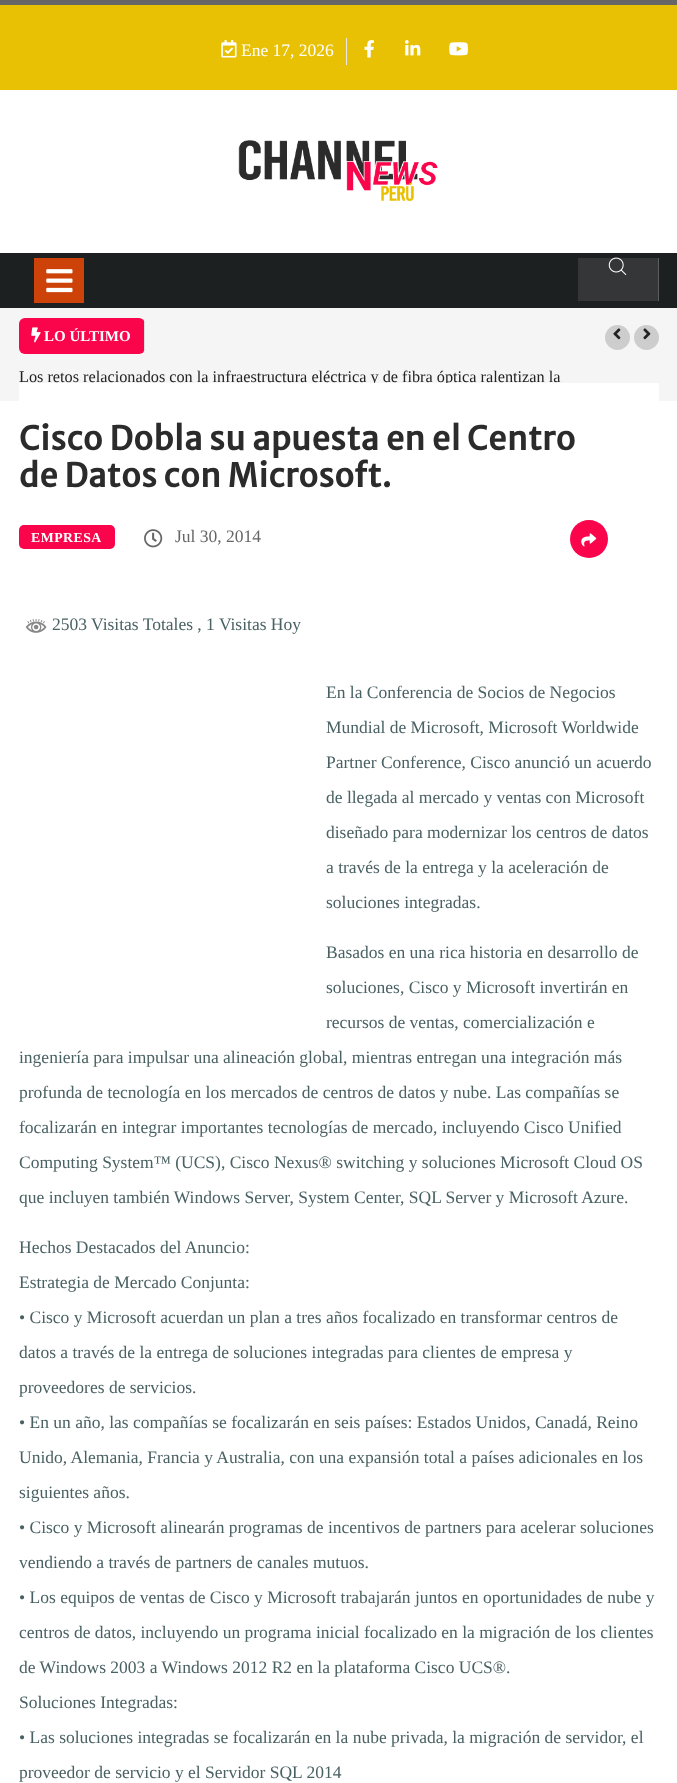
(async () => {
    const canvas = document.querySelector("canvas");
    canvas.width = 677;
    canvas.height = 1783;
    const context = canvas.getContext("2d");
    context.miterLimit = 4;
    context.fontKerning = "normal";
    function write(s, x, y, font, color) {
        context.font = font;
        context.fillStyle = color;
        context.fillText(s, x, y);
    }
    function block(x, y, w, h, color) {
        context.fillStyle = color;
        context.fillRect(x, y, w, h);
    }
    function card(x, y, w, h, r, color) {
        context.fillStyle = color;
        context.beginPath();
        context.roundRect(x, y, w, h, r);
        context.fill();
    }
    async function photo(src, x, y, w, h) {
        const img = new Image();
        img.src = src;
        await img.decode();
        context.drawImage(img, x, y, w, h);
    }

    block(0, 0, 677, 1783, "rgb(255, 255, 255)");
    block(0, 0, 677, 5, "rgb(103, 102, 102)");
    block(0, 5, 677, 85, "rgb(232, 193, 4)");
    block(346, 38, 1, 27, "rgb(234, 234, 234)");
    await photo("media/1.png", 221, 40, 16, 18);
    write("Ene 17, 2026", 241, 56, "17.5px Liberation Serif", "rgb(255, 255, 255)");
    await photo("media/2.png", 364, 40, 10, 18);
    await photo("media/3.png", 405, 40, 16, 16);
    await photo("media/4.png", 449, 42, 19, 14);
    await photo("media/5.png", 238, 140, 200, 62);
    block(0, 253, 677, 55, "rgb(29, 32, 33)");
    block(34, 258, 50, 45, "rgb(204, 66, 9)");
    await photo("media/6.png", 46, 269, 27, 24);
    block(578, 258, 80, 43, "rgb(52, 54, 55)");
    block(658, 258, 1, 43, "rgb(93, 94, 95)");
    await photo("media/7.png", 608, 257, 19, 18);
    block(0, 308, 677, 93, "rgb(245, 245, 245)");
    card(19, 318, 126, 36, 6, "rgb(250, 4, 75)");
    block(144, 321, 1, 30, "rgb(222, 219, 219)");
    await photo("media/8.png", 31, 327, 10, 16);
    write("LO ÚLTIMO", 44, 341, "bold 15px Liberation Serif", "rgb(255, 255, 255)");
    context.fillStyle = "rgb(205, 205, 205)";
    context.beginPath();
    context.arc(617.5, 337.5, 12.5, 0, Math.PI * 2);
    context.fill();
    await photo("media/9.png", 613, 328, 8, 12);
    context.beginPath();
    context.arc(646.5, 337.5, 12.5, 0, Math.PI * 2);
    context.fill();
    await photo("media/10.png", 643, 328, 8, 12);
    write("Los retos relacionados con la infraestructura eléctrica y de fibra óptica ralentizan la", 19, 382, "16.25px Liberation Serif", "rgb(34, 34, 34)");
    block(19, 383, 640, 18, "rgb(255, 255, 255)");
    context.letterSpacing = "0.55px";
    write("Cisco Dobla su apuesta en el Centro", 19, 450, "bold 32.5px Merriweather Sans", "rgb(43, 43, 43)");
    write("de Datos con Microsoft.", 19, 487, "bold 32.5px Merriweather Sans", "rgb(43, 43, 43)");
    card(19, 525, 96, 24, 5, "rgb(250, 4, 75)");
    context.letterSpacing = "0.5px";
    write("EMPRESA", 31, 542, "bold 13.75px Liberation Serif", "rgb(255, 255, 255)");
    await photo("media/11.png", 144, 529, 19, 19);
    context.letterSpacing = "0px";
    write("Jul 30, 2014", 175, 542, "17.5px Liberation Serif", "rgb(102, 102, 102)");
    context.fillStyle = "rgb(250, 4, 75)";
    context.beginPath();
    context.arc(589, 539, 19, 0, Math.PI * 2);
    context.fill();
    await photo("media/12.png", 581, 533, 16, 14);
    await photo("media/13.png", 25, 619, 22, 14);
    write("2503 Visitas Totales , 1 Visitas Hoy", 52, 630, "17.5px Liberation Serif", "rgb(74, 97, 99)");
    write("En la Conferencia de Socios de Negocios", 326, 698, "17.5px Liberation Serif", "rgb(74, 97, 99)");
    write("Mundial de Microsoft, Microsoft Worldwide", 326, 733, "17.5px Liberation Serif", "rgb(74, 97, 99)");
    write("Partner Conference, Cisco anunció un acuerdo", 326, 768, "17.5px Liberation Serif", "rgb(74, 97, 99)");
    write("de llegada al mercado y ventas con Microsoft", 326, 803, "17.5px Liberation Serif", "rgb(74, 97, 99)");
    write("diseñado para modernizar los centros de datos", 326, 838, "17.5px Liberation Serif", "rgb(74, 97, 99)");
    write("a través de la entrega y la aceleración de", 326, 873, "17.5px Liberation Serif", "rgb(74, 97, 99)");
    write("soluciones integradas.", 326, 908, "17.5px Liberation Serif", "rgb(74, 97, 99)");
    write("Basados en una rica historia en desarrollo de", 326, 958, "17.5px Liberation Serif", "rgb(74, 97, 99)");
    write("soluciones, Cisco y Microsoft invertirán en", 326, 993, "17.5px Liberation Serif", "rgb(74, 97, 99)");
    write("recursos de ventas, comercialización e", 326, 1028, "17.5px Liberation Serif", "rgb(74, 97, 99)");
    write("ingeniería para impulsar una alineación global, mientras entregan una integración más", 19, 1063, "17.5px Liberation Serif", "rgb(74, 97, 99)");
    write("profunda de tecnología en los mercados de centros de datos y nube. Las compañías se", 19, 1098, "17.5px Liberation Serif", "rgb(74, 97, 99)");
    write("focalizarán en integrar importantes tecnologías de mercado, incluyendo Cisco Unified", 19, 1133, "17.5px Liberation Serif", "rgb(74, 97, 99)");
    write("Computing System™ (UCS), Cisco Nexus® switching y soluciones Microsoft Cloud OS", 19, 1168, "17.5px Liberation Serif", "rgb(74, 97, 99)");
    write("que incluyen también Windows Server, System Center, SQL Server y Microsoft Azure.", 19, 1203, "17.5px Liberation Serif", "rgb(74, 97, 99)");
    write("Hechos Destacados del Anuncio:", 19, 1253, "17.5px Liberation Serif", "rgb(74, 97, 99)");
    write("Estrategia de Mercado Conjunta:", 19, 1288, "17.5px Liberation Serif", "rgb(74, 97, 99)");
    write("• Cisco y Microsoft acuerdan un plan a tres años focalizado en transformar centros de", 19, 1323, "17.5px Liberation Serif", "rgb(74, 97, 99)");
    write("datos a través de la entrega de soluciones integradas para clientes de empresa y", 19, 1358, "17.5px Liberation Serif", "rgb(74, 97, 99)");
    write("proveedores de servicios.", 19, 1393, "17.5px Liberation Serif", "rgb(74, 97, 99)");
    write("• En un año, las compañías se focalizarán en seis países: Estados Unidos, Canadá, Reino", 19, 1428, "17.5px Liberation Serif", "rgb(74, 97, 99)");
    write("Unido, Alemania, Francia y Australia, con una expansión total a países adicionales en los", 19, 1463, "17.5px Liberation Serif", "rgb(74, 97, 99)");
    write("siguientes años.", 19, 1498, "17.5px Liberation Serif", "rgb(74, 97, 99)");
    write("• Cisco y Microsoft alinearán programas de incentivos de partners para acelerar soluciones", 19, 1533, "17.5px Liberation Serif", "rgb(74, 97, 99)");
    write("vendiendo a través de partners de canales mutuos.", 19, 1568, "17.5px Liberation Serif", "rgb(74, 97, 99)");
    write("• Los equipos de ventas de Cisco y Microsoft trabajarán juntos en oportunidades de nube y", 19, 1603, "17.5px Liberation Serif", "rgb(74, 97, 99)");
    write("centros de datos, incluyendo un programa inicial focalizado en la migración de los clientes", 19, 1638, "17.5px Liberation Serif", "rgb(74, 97, 99)");
    write("de Windows 2003 a Windows 2012 R2 en la plataforma Cisco UCS®.", 19, 1673, "17.5px Liberation Serif", "rgb(74, 97, 99)");
    write("Soluciones Integradas:", 19, 1708, "17.5px Liberation Serif", "rgb(74, 97, 99)");
    write("• Las soluciones integradas se focalizarán en la nube privada, la migración de servidor, el", 19, 1743, "17.5px Liberation Serif", "rgb(74, 97, 99)");
    write("proveedor de servicio y el Servidor SQL 2014", 19, 1778, "17.5px Liberation Serif", "rgb(74, 97, 99)");
    await photo("media/14.png", 18, 443, 1, 2);
})();
